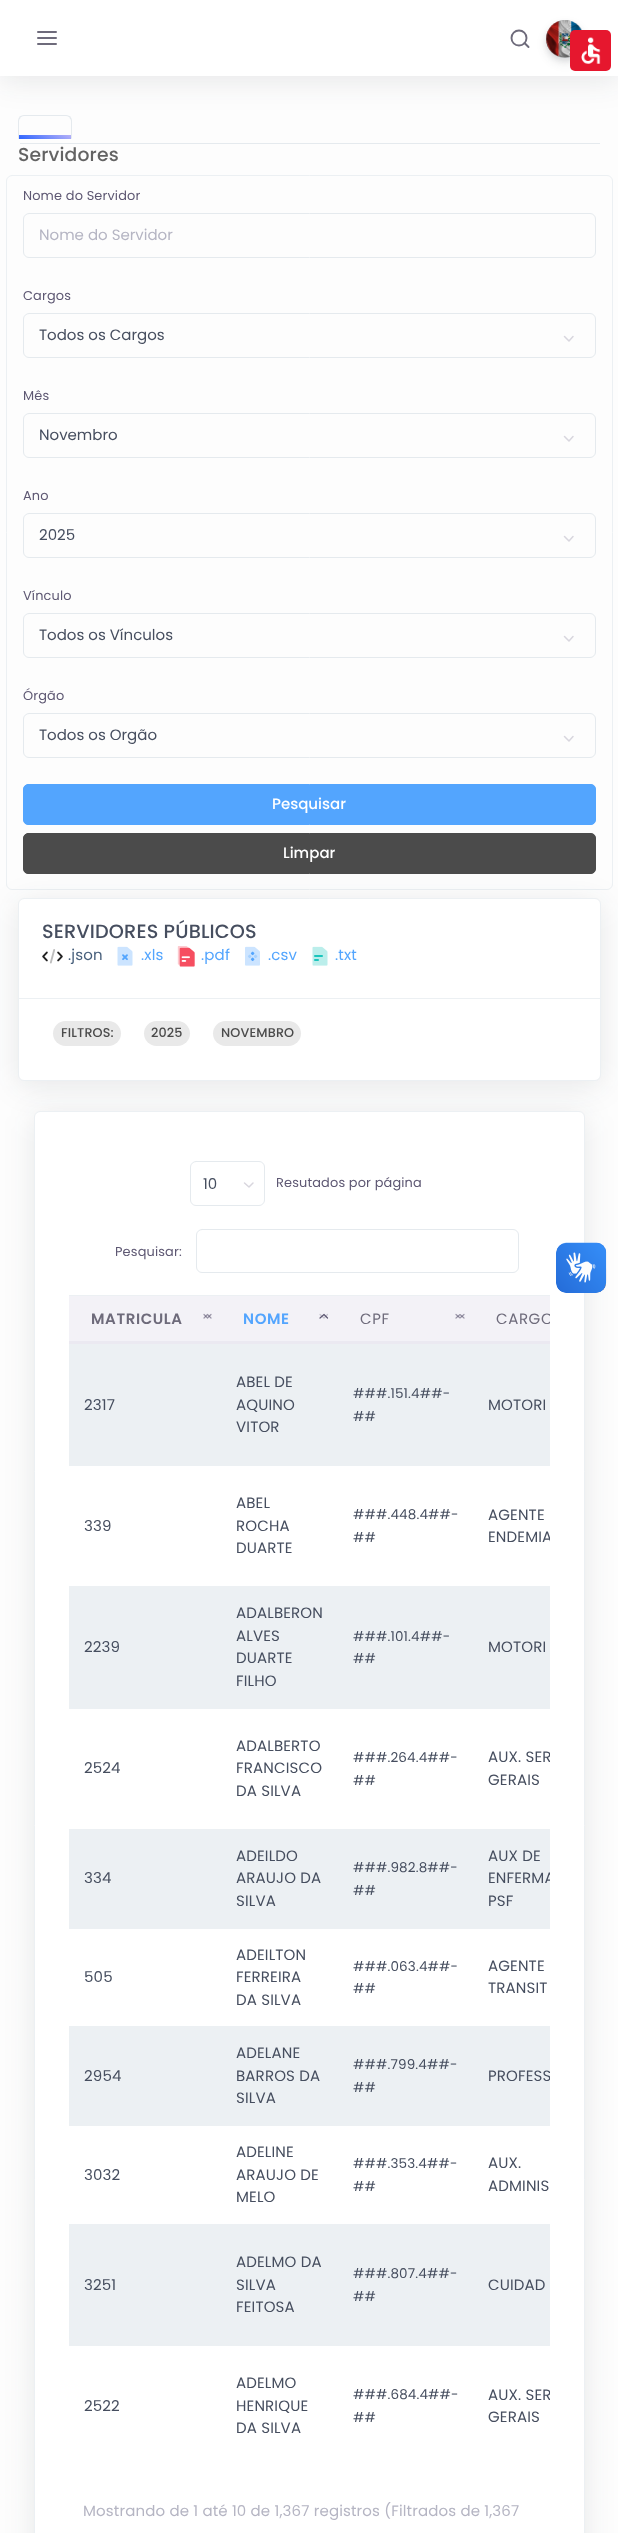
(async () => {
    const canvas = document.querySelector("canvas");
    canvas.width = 618;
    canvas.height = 2533;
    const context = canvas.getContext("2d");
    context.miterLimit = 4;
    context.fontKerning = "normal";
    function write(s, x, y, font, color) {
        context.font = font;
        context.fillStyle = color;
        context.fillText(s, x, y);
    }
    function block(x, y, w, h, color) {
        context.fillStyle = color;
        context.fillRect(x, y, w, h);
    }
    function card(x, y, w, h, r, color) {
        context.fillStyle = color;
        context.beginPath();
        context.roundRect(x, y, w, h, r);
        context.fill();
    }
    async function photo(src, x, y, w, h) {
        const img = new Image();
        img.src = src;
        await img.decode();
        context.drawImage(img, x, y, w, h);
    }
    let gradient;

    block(0, 0, 618, 2533, "rgb(253, 253, 253)");
    context.fillStyle = "rgb(229, 234, 238)";
    context.beginPath();
    context.moveTo(24, 115);
    context.bezierCurveTo(22, 115, 20, 116, 19, 117);
    context.lineTo(20, 118);
    context.bezierCurveTo(21, 117, 22, 116, 24, 116);
    context.lineTo(66, 116);
    context.bezierCurveTo(68, 116, 69, 117, 70, 118);
    context.lineTo(71, 117);
    context.bezierCurveTo(70, 116, 68, 115, 66, 115);
    context.closePath();
    context.fill();
    context.beginPath();
    context.moveTo(70.5, 117);
    context.bezierCurveTo(71.5, 118, 72, 119.5, 72, 121);
    context.lineTo(72, 139.5);
    context.lineTo(71, 138.5);
    context.lineTo(71, 121);
    context.bezierCurveTo(71, 120, 70.5, 119, 69.5, 118);
    context.closePath();
    context.fill();
    context.fillStyle = "rgb(255, 255, 255)";
    context.beginPath();
    context.moveTo(18, 140);
    context.lineTo(72, 140);
    context.lineTo(71, 138);
    context.lineTo(71, 139);
    context.lineTo(19, 139);
    context.lineTo(19, 138);
    context.closePath();
    context.fill();
    context.fillStyle = "rgb(229, 234, 238)";
    context.beginPath();
    context.moveTo(19.5, 117);
    context.bezierCurveTo(18.5, 118, 18, 119.5, 18, 121);
    context.lineTo(18, 139.5);
    context.lineTo(19, 138.5);
    context.lineTo(19, 121);
    context.bezierCurveTo(19, 120, 19.5, 119, 20.5, 118);
    context.closePath();
    context.fill();
    context.fillStyle = "rgba(34, 41, 47, 0.1)";
    context.filter = "blur(15px)";
    context.beginPath();
    context.rect(0, 5, 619, 76);
    context.fill();
    context.filter = "none";
    block(0, 0, 618, 76, "rgb(255, 255, 255)");
    context.beginPath();
    context.moveTo(38, 38);
    context.lineTo(56, 38);
    context.moveTo(38, 32);
    context.lineTo(56, 32);
    context.moveTo(38, 44);
    context.lineTo(56, 44);
    context.strokeStyle = "rgb(110, 107, 123)";
    context.lineWidth = 2;
    context.lineCap = "round";
    context.lineJoin = "round";
    context.stroke();
    context.beginPath();
    context.arc(519, 38, 7.5, 0, Math.PI * 2);
    context.lineWidth = 1.9;
    context.stroke();
    context.beginPath();
    context.moveTo(528.5, 47);
    context.lineTo(524.5, 43);
    context.stroke();
    context.fillStyle = "rgb(195, 195, 195)";
    context.beginPath();
    context.arc(565, 39, 19, 0, Math.PI * 2);
    context.fill();
    context.fillStyle = "rgba(34, 41, 47, 0.08)";
    context.filter = "blur(2.5px)";
    context.beginPath();
    context.roundRect(546, 23, 38, 37, 18.5);
    context.fill();
    context.filter = "none";
    context.fillStyle = "rgba(34, 41, 47, 0.12)";
    context.filter = "blur(5px)";
    context.beginPath();
    context.roundRect(546, 25, 38, 38, 19);
    context.fill();
    context.filter = "none";
    await photo("media/1.png", 546, 20, 36, 38);
    card(570, 30, 41, 41, 5, "rgb(230, 23, 46)");
    await photo("media/2.png", 581, 37, 20, 27);
    block(20, 143, 580, 1, "rgb(229, 234, 238)");
    gradient = context.createLinearGradient(38, 150, 52, 124);
    gradient.addColorStop(0, "rgb(41, 98, 255)");
    gradient.addColorStop(1, "rgb(185, 179, 248)");
    context.fillStyle = gradient;
    context.fillRect(19, 135, 52, 4);
    context.letterSpacing = "0.15px";
    write("Servidores", 18, 161, "500 18.75px Poppins", "rgb(99, 99, 99)");
    context.beginPath();
    context.roundRect(6.5, 175.5, 606, 714, 5.5);
    context.strokeStyle = "rgb(236, 240, 243)";
    context.lineWidth = 1;
    context.lineJoin = "miter";
    context.stroke();
    write("Nome do Servidor", 23, 200, "12.9px Poppins", "rgb(94, 88, 115)");
    context.beginPath();
    context.roundRect(23.5, 213.5, 572, 44, 5.5);
    context.strokeStyle = "rgb(229, 234, 238)";
    context.stroke();
    context.letterSpacing = "0px";
    write("Nome do Servidor", 39, 240, "15px Poppins", "rgb(181, 181, 195)");
    context.letterSpacing = "0.15px";
    write("Cargos", 23, 300, "12.9px Poppins", "rgb(94, 88, 115)");
    context.beginPath();
    context.moveTo(564.5, 336.5);
    context.lineTo(569, 341);
    context.lineTo(573, 336.5);
    context.strokeStyle = "rgb(216, 214, 222)";
    context.lineWidth = 1.5;
    context.lineJoin = "round";
    context.stroke();
    context.beginPath();
    context.roundRect(23.5, 313.5, 572, 44, 5.5);
    context.strokeStyle = "rgb(229, 234, 238)";
    context.lineWidth = 1;
    context.lineJoin = "miter";
    context.stroke();
    context.letterSpacing = "0px";
    write("Todos os Cargos", 39, 340, "15px Poppins", "rgb(70, 78, 95)");
    context.letterSpacing = "0.15px";
    write("Mês", 23, 400, "12.9px Poppins", "rgb(94, 88, 115)");
    context.beginPath();
    context.moveTo(564.5, 436.5);
    context.lineTo(569, 441);
    context.lineTo(573, 436.5);
    context.strokeStyle = "rgb(216, 214, 222)";
    context.lineWidth = 1.5;
    context.lineJoin = "round";
    context.stroke();
    context.beginPath();
    context.roundRect(23.5, 413.5, 572, 44, 5.5);
    context.strokeStyle = "rgb(229, 234, 238)";
    context.lineWidth = 1;
    context.lineJoin = "miter";
    context.stroke();
    context.letterSpacing = "0px";
    write("Novembro", 39, 440, "15px Poppins", "rgb(70, 78, 95)");
    context.letterSpacing = "0.15px";
    write("Ano", 23, 500, "12.9px Poppins", "rgb(94, 88, 115)");
    context.beginPath();
    context.moveTo(564.5, 536.5);
    context.lineTo(569, 541);
    context.lineTo(573, 536.5);
    context.strokeStyle = "rgb(216, 214, 222)";
    context.lineWidth = 1.5;
    context.lineJoin = "round";
    context.stroke();
    context.beginPath();
    context.roundRect(23.5, 513.5, 572, 44, 5.5);
    context.strokeStyle = "rgb(229, 234, 238)";
    context.lineWidth = 1;
    context.lineJoin = "miter";
    context.stroke();
    context.letterSpacing = "0px";
    write("2025", 39, 540, "15px Poppins", "rgb(70, 78, 95)");
    context.letterSpacing = "0.15px";
    write("Vínculo", 23, 600, "12.9px Poppins", "rgb(94, 88, 115)");
    context.beginPath();
    context.moveTo(564.5, 636.5);
    context.lineTo(569, 641);
    context.lineTo(573, 636.5);
    context.strokeStyle = "rgb(216, 214, 222)";
    context.lineWidth = 1.5;
    context.lineJoin = "round";
    context.stroke();
    context.beginPath();
    context.roundRect(23.5, 613.5, 572, 44, 5.5);
    context.strokeStyle = "rgb(229, 234, 238)";
    context.lineWidth = 1;
    context.lineJoin = "miter";
    context.stroke();
    context.letterSpacing = "0px";
    write("Todos os Vínculos", 39, 640, "15px Poppins", "rgb(70, 78, 95)");
    context.letterSpacing = "0.15px";
    write("Órgão", 23, 700, "12.9px Poppins", "rgb(94, 88, 115)");
    context.beginPath();
    context.moveTo(564.5, 736.5);
    context.lineTo(569, 741);
    context.lineTo(573, 736.5);
    context.strokeStyle = "rgb(216, 214, 222)";
    context.lineWidth = 1.5;
    context.lineJoin = "round";
    context.stroke();
    context.beginPath();
    context.roundRect(23.5, 713.5, 572, 44, 5.5);
    context.strokeStyle = "rgb(229, 234, 238)";
    context.lineWidth = 1;
    context.lineJoin = "miter";
    context.stroke();
    context.letterSpacing = "0px";
    write("Todos os Orgão", 39, 740, "15px Poppins", "rgb(70, 78, 95)");
    context.fillStyle = "rgb(83, 165, 254)";
    context.beginPath();
    context.roundRect(23.5, 784.5, 572, 40, 4.5);
    context.fill();
    context.strokeStyle = "rgb(83, 165, 254)";
    context.stroke();
    write("Pesquisar", 272, 809, "500 15px Poppins", "rgb(255, 255, 255)");
    context.fillStyle = "rgb(75, 75, 75)";
    context.beginPath();
    context.roundRect(23.5, 833.5, 572, 40, 4.5);
    context.fill();
    context.strokeStyle = "rgb(75, 75, 75)";
    context.stroke();
    write("Limpar", 283, 858, "500 15px Poppins", "rgb(255, 255, 255)");
    context.fillStyle = "rgba(34, 41, 47, 0.1)";
    context.filter = "blur(15px)";
    context.beginPath();
    context.roundRect(18, 903, 583, 183, 6);
    context.fill();
    context.filter = "none";
    context.fillStyle = "rgb(255, 255, 255)";
    context.beginPath();
    context.roundRect(18.5, 898.5, 582, 182, 5.5);
    context.fill();
    context.strokeStyle = "rgb(236, 240, 243)";
    context.stroke();
    block(19, 998, 581, 1, "rgb(236, 240, 243)");
    context.letterSpacing = "0.15px";
    write("SERVIDORES PÚBLICOS", 42, 938, "500 19.25px Poppins", "rgb(70, 78, 95)");
    await photo("media/3.png", 42, 949, 21, 15);
    write(".json", 68, 960, "15px Poppins", "rgb(71, 95, 123)");
    await photo("media/4.png", 117, 946, 16, 20);
    write(".xls", 141, 960, "15px Poppins", "rgb(83, 165, 254)");
    await photo("media/5.png", 177, 946, 18, 21);
    write(".pdf", 201, 960, "15px Poppins", "rgb(83, 165, 254)");
    await photo("media/6.png", 245, 946, 15, 20);
    write(".csv", 268, 960, "15px Poppins", "rgb(83, 165, 254)");
    await photo("media/7.png", 312, 946, 16, 20);
    write(".txt", 335, 960, "15px Poppins", "rgb(83, 165, 254)");
    card(53, 1021, 68, 25, 12.5, "rgb(233, 233, 233)");
    write("FILTROS:", 61, 1037, "500 12.75px Poppins", "rgb(75, 75, 75)");
    card(144, 1021, 46, 25, 12.5, "rgb(233, 233, 233)");
    write("2025", 151, 1037, "500 12.75px Poppins", "rgb(75, 75, 75)");
    card(213, 1021, 88, 25, 12.5, "rgb(233, 233, 233)");
    write("NOVEMBRO", 221, 1037, "500 12.75px Poppins", "rgb(75, 75, 75)");
    context.fillStyle = "rgba(34, 41, 47, 0.1)";
    context.filter = "blur(15px)";
    context.beginPath();
    context.roundRect(34, 1116, 551, 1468, 6);
    context.fill();
    context.filter = "none";
    context.fillStyle = "rgb(255, 255, 255)";
    context.beginPath();
    context.roundRect(34.5, 1111.5, 550, 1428, 5.5);
    context.fill();
    context.stroke();
    context.beginPath();
    context.moveTo(244.5, 1183);
    context.lineTo(249, 1187);
    context.lineTo(253, 1183);
    context.strokeStyle = "rgb(216, 214, 222)";
    context.lineWidth = 1.5;
    context.lineJoin = "round";
    context.stroke();
    context.beginPath();
    context.roundRect(190.5, 1161.5, 74, 44, 5.5);
    context.strokeStyle = "rgb(229, 234, 238)";
    context.lineWidth = 1;
    context.lineJoin = "miter";
    context.stroke();
    context.letterSpacing = "0px";
    write("10", 203, 1189, "15px Poppins", "rgb(70, 78, 95)");
    context.letterSpacing = "0.15px";
    write("Resutados por página", 276, 1187, "12.9px Poppins", "rgb(94, 88, 115)");
    write("Pesquisar:", 115, 1256, "12.9px Poppins", "rgb(94, 88, 115)");
    context.beginPath();
    context.roundRect(196.5, 1229.5, 322, 43, 5.5);
    context.stroke();
    block(69, 1296, 481, 45, "rgb(243, 242, 247)");
    block(69, 1295, 481, 1, "rgb(236, 240, 243)");
    block(69, 1341, 481, 3, "rgb(235, 233, 241)");
    context.letterSpacing = "0.6px";
    write("MATRICULA", 91, 1324, "600 15px Poppins", "rgb(110, 107, 123)");
    context.beginPath();
    context.moveTo(211, 1318);
    context.lineTo(207.5, 1314.5);
    context.lineTo(204, 1318);
    context.strokeStyle = "rgb(154, 150, 168)";
    context.lineWidth = 1.2;
    context.lineJoin = "round";
    context.stroke();
    context.beginPath();
    context.moveTo(204, 1314.5);
    context.lineTo(207.5, 1318);
    context.lineTo(211, 1314.5);
    context.strokeStyle = "rgba(94, 88, 115, 0.6)";
    context.stroke();
    write("NOME", 243, 1324, "600 15px Poppins", "rgb(83, 165, 254)");
    context.beginPath();
    context.moveTo(327.5, 1318);
    context.lineTo(324, 1314.5);
    context.lineTo(320, 1318);
    context.strokeStyle = "rgb(94, 88, 115)";
    context.stroke();
    context.beginPath();
    context.moveTo(320, 1314.5);
    context.lineTo(324, 1318);
    context.lineTo(327.5, 1314.5);
    context.strokeStyle = "rgba(94, 88, 115, 0.3)";
    context.stroke();
    write("CPF", 360, 1324, "15px Poppins", "rgb(110, 107, 123)");
    context.beginPath();
    context.moveTo(464, 1318);
    context.lineTo(460, 1314.5);
    context.lineTo(456, 1318);
    context.strokeStyle = "rgb(154, 150, 168)";
    context.stroke();
    context.beginPath();
    context.moveTo(456, 1314.5);
    context.lineTo(460, 1318);
    context.lineTo(464, 1314.5);
    context.strokeStyle = "rgba(94, 88, 115, 0.6)";
    context.stroke();
    context.save();
    context.beginPath();
    context.rect(69, 1146, 481, 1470);
    context.clip();
    write("CARGO", 496, 1324, "15px Poppins", "rgb(110, 107, 123)");
    context.restore();
    block(69, 1344, 481, 121, "rgb(236, 240, 243)");
    context.letterSpacing = "0.15px";
    write("2317", 84, 1410, "15px Poppins", "rgb(70, 78, 95)");
    write("ABEL DE", 236, 1387, "15px Poppins", "rgb(70, 78, 95)");
    write("AQUINO", 236, 1410, "15px Poppins", "rgb(70, 78, 95)");
    write("VITOR", 236, 1432, "15px Poppins", "rgb(70, 78, 95)");
    write("###.151.4##-", 353, 1398, "13.5px Poppins", "rgb(70, 78, 95)");
    write("##", 353, 1421, "13.5px Poppins", "rgb(70, 78, 95)");
    write("MOTORI", 488, 1410, "15px Poppins", "rgb(70, 78, 95)");
    block(69, 1465, 481, 1, "rgb(236, 240, 243)");
    write("339", 84, 1531, "15px Poppins", "rgb(70, 78, 95)");
    write("ABEL", 236, 1508, "15px Poppins", "rgb(70, 78, 95)");
    write("ROCHA", 236, 1531, "15px Poppins", "rgb(70, 78, 95)");
    write("DUARTE", 236, 1553, "15px Poppins", "rgb(70, 78, 95)");
    write("###.448.4##-", 353, 1519, "13.5px Poppins", "rgb(70, 78, 95)");
    write("##", 353, 1542, "13.5px Poppins", "rgb(70, 78, 95)");
    write("AGENTE", 488, 1520, "15px Poppins", "rgb(70, 78, 95)");
    context.save();
    context.beginPath();
    context.rect(69, 1146, 481, 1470);
    context.clip();
    write("ENDEMIA", 488, 1542, "15px Poppins", "rgb(70, 78, 95)");
    context.restore();
    block(69, 1586, 481, 122, "rgb(236, 240, 243)");
    write("2239", 84, 1652, "15px Poppins", "rgb(70, 78, 95)");
    write("ADALBERON", 236, 1618, "15px Poppins", "rgb(70, 78, 95)");
    write("ALVES", 236, 1641, "15px Poppins", "rgb(70, 78, 95)");
    write("DUARTE", 236, 1663, "15px Poppins", "rgb(70, 78, 95)");
    write("FILHO", 236, 1686, "15px Poppins", "rgb(70, 78, 95)");
    write("###.101.4##-", 353, 1641, "13.5px Poppins", "rgb(70, 78, 95)");
    write("##", 353, 1663, "13.5px Poppins", "rgb(70, 78, 95)");
    write("MOTORI", 488, 1652, "15px Poppins", "rgb(70, 78, 95)");
    block(69, 1708, 481, 1, "rgb(236, 240, 243)");
    write("2524", 84, 1773, "15px Poppins", "rgb(70, 78, 95)");
    write("ADALBERTO", 236, 1751, "15px Poppins", "rgb(70, 78, 95)");
    write("FRANCISCO", 236, 1773, "15px Poppins", "rgb(70, 78, 95)");
    write("DA SILVA", 236, 1796, "15px Poppins", "rgb(70, 78, 95)");
    write("###.264.4##-", 353, 1762, "13.5px Poppins", "rgb(70, 78, 95)");
    write("##", 353, 1785, "13.5px Poppins", "rgb(70, 78, 95)");
    context.save();
    context.beginPath();
    context.rect(69, 1146, 481, 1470);
    context.clip();
    write("AUX. SER", 488, 1762, "15px Poppins", "rgb(70, 78, 95)");
    context.restore();
    write("GERAIS", 488, 1785, "15px Poppins", "rgb(70, 78, 95)");
    block(69, 1829, 481, 99, "rgb(236, 240, 243)");
    write("334", 84, 1883, "15px Poppins", "rgb(70, 78, 95)");
    write("ADEILDO", 236, 1861, "15px Poppins", "rgb(70, 78, 95)");
    write("ARAUJO DA", 236, 1883, "15px Poppins", "rgb(70, 78, 95)");
    write("SILVA", 236, 1906, "15px Poppins", "rgb(70, 78, 95)");
    write("###.982.8##-", 353, 1872, "13.5px Poppins", "rgb(70, 78, 95)");
    write("##", 353, 1895, "13.5px Poppins", "rgb(70, 78, 95)");
    write("AUX DE", 488, 1861, "15px Poppins", "rgb(70, 78, 95)");
    context.save();
    context.beginPath();
    context.rect(69, 1146, 481, 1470);
    context.clip();
    write("ENFERMA", 488, 1883, "15px Poppins", "rgb(70, 78, 95)");
    context.restore();
    write("PSF", 488, 1906, "15px Poppins", "rgb(70, 78, 95)");
    block(69, 1928, 481, 1, "rgb(236, 240, 243)");
    write("505", 84, 1982, "15px Poppins", "rgb(70, 78, 95)");
    write("ADEILTON", 236, 1960, "15px Poppins", "rgb(70, 78, 95)");
    write("FERREIRA", 236, 1982, "15px Poppins", "rgb(70, 78, 95)");
    write("DA SILVA", 236, 2005, "15px Poppins", "rgb(70, 78, 95)");
    write("###.063.4##-", 353, 1971, "13.5px Poppins", "rgb(70, 78, 95)");
    write("##", 353, 1993, "13.5px Poppins", "rgb(70, 78, 95)");
    write("AGENTE", 488, 1971, "15px Poppins", "rgb(70, 78, 95)");
    write("TRANSIT", 488, 1993, "15px Poppins", "rgb(70, 78, 95)");
    block(69, 2026, 481, 99, "rgb(236, 240, 243)");
    write("2954", 84, 2081, "15px Poppins", "rgb(70, 78, 95)");
    write("ADELANE", 236, 2058, "15px Poppins", "rgb(70, 78, 95)");
    write("BARROS DA", 236, 2081, "15px Poppins", "rgb(70, 78, 95)");
    write("SILVA", 236, 2103, "15px Poppins", "rgb(70, 78, 95)");
    write("###.799.4##-", 353, 2069, "13.5px Poppins", "rgb(70, 78, 95)");
    write("##", 353, 2092, "13.5px Poppins", "rgb(70, 78, 95)");
    context.save();
    context.beginPath();
    context.rect(69, 1146, 481, 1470);
    context.clip();
    write("PROFESS", 488, 2081, "15px Poppins", "rgb(70, 78, 95)");
    context.restore();
    block(69, 2125, 481, 1, "rgb(236, 240, 243)");
    write("3032", 84, 2180, "15px Poppins", "rgb(70, 78, 95)");
    write("ADELINE", 236, 2157, "15px Poppins", "rgb(70, 78, 95)");
    write("ARAUJO DE", 236, 2180, "15px Poppins", "rgb(70, 78, 95)");
    write("MELO", 236, 2202, "15px Poppins", "rgb(70, 78, 95)");
    write("###.353.4##-", 353, 2168, "13.5px Poppins", "rgb(70, 78, 95)");
    write("##", 353, 2191, "13.5px Poppins", "rgb(70, 78, 95)");
    write("AUX.", 488, 2168, "15px Poppins", "rgb(70, 78, 95)");
    write("ADMINIS", 488, 2191, "15px Poppins", "rgb(70, 78, 95)");
    block(69, 2224, 481, 121, "rgb(236, 240, 243)");
    write("3251", 84, 2290, "15px Poppins", "rgb(70, 78, 95)");
    write("ADELMO DA", 236, 2267, "15px Poppins", "rgb(70, 78, 95)");
    write("SILVA", 236, 2290, "15px Poppins", "rgb(70, 78, 95)");
    write("FEITOSA", 236, 2312, "15px Poppins", "rgb(70, 78, 95)");
    write("###.807.4##-", 353, 2278, "13.5px Poppins", "rgb(70, 78, 95)");
    write("##", 353, 2301, "13.5px Poppins", "rgb(70, 78, 95)");
    write("CUIDAD", 488, 2290, "15px Poppins", "rgb(70, 78, 95)");
    block(69, 2345, 481, 1, "rgb(236, 240, 243)");
    write("2522", 84, 2411, "15px Poppins", "rgb(70, 78, 95)");
    write("ADELMO", 236, 2388, "15px Poppins", "rgb(70, 78, 95)");
    write("HENRIQUE", 236, 2411, "15px Poppins", "rgb(70, 78, 95)");
    write("DA SILVA", 236, 2433, "15px Poppins", "rgb(70, 78, 95)");
    write("###.684.4##-", 353, 2399, "13.5px Poppins", "rgb(70, 78, 95)");
    write("##", 353, 2422, "13.5px Poppins", "rgb(70, 78, 95)");
    context.save();
    context.beginPath();
    context.rect(69, 1146, 481, 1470);
    context.clip();
    write("AUX. SER", 488, 2400, "15px Poppins", "rgb(70, 78, 95)");
    context.restore();
    write("GERAIS", 488, 2422, "15px Poppins", "rgb(70, 78, 95)");
    write("Mostrando de 1 até 10 de 1,367 registros (Filtrados de 1,367", 83, 2516, "15px Poppins", "rgb(181, 181, 195)");
    await photo("media/8.png", 556, 1242, 51, 51);
    await photo("media/9.png", 556, 1243, 50, 50);
})();
